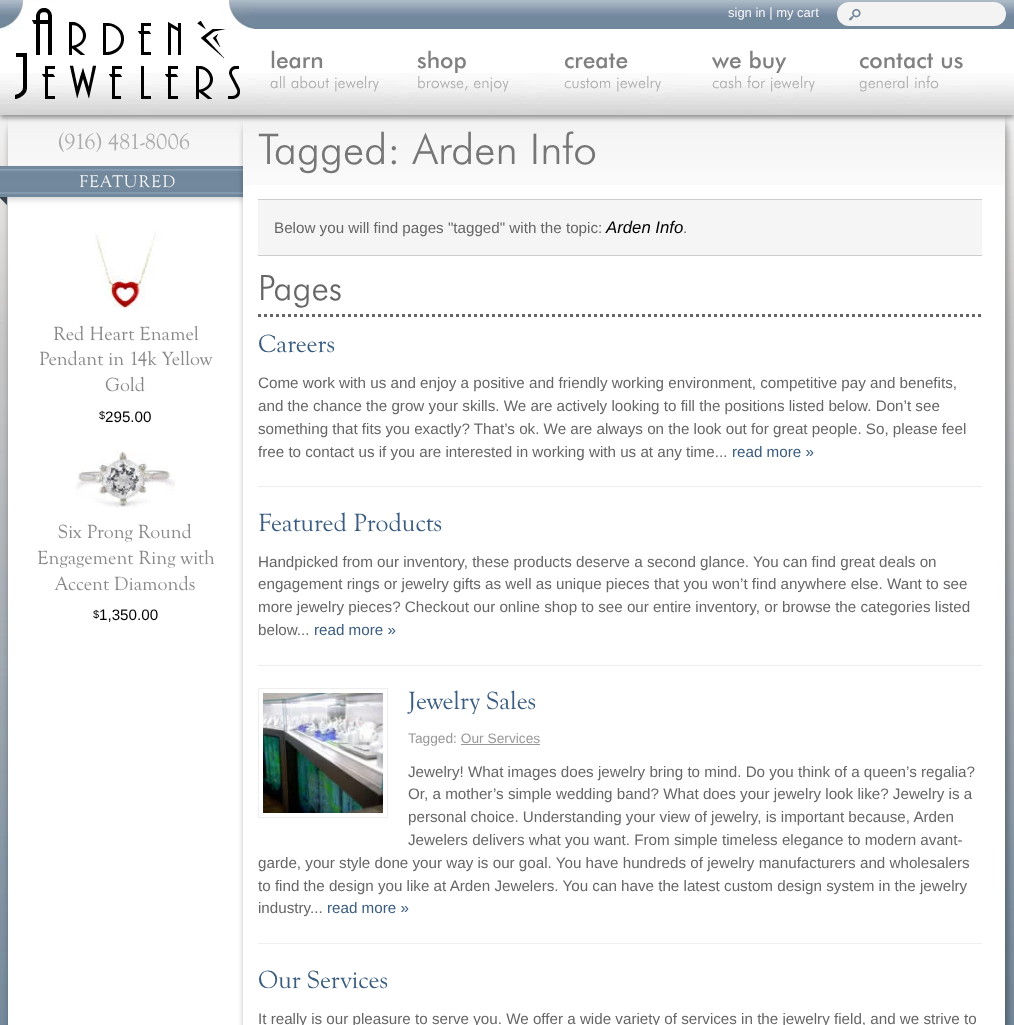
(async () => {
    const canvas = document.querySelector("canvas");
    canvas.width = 1014;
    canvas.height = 1025;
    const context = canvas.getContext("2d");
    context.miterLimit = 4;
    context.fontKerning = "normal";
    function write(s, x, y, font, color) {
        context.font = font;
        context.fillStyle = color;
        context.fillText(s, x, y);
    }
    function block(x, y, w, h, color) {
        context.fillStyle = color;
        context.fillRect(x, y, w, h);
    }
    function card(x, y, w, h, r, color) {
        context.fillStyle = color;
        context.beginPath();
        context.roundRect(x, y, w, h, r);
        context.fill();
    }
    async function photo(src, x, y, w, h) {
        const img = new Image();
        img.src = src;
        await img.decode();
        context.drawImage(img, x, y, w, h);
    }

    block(0, 0, 1014, 1025, "rgb(255, 255, 255)");
    await photo("media/1.png", 0, 115, 1014, 910);
    context.fillStyle = "rgba(0, 0, 0, 0.33)";
    context.filter = "blur(3px)";
    context.beginPath();
    context.roundRect(9, 106, 245, 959, 31);
    context.fill();
    context.filter = "none";
    await photo("media/6.png", 8, 115, 235, 51);
    block(8, 197, 235, 828, "rgb(255, 255, 255)");
    context.fillStyle = "rgba(0, 0, 0, 0.2)";
    context.filter = "blur(3px)";
    context.beginPath();
    context.rect(5, 176, 243, 23);
    context.fill();
    context.filter = "none";
    await photo("media/8.png", 0, 166, 243, 31);
    context.fillStyle = "rgba(0, 0, 0, 0.33)";
    context.filter = "blur(3px)";
    context.beginPath();
    context.roundRect(244, 106, 764, 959, 31);
    context.fill();
    context.filter = "none";
    await photo("media/7.png", 243, 115, 762, 70);
    context.fillStyle = "rgba(0, 0, 0, 0.4)";
    context.filter = "blur(2.5px)";
    context.beginPath();
    context.rect(0, 3, 1014, 115);
    context.fill();
    context.filter = "none";
    block(0, 29, 1014, 44, "rgb(255, 255, 255)");
    await photo("media/2.png", 0, 73, 1014, 42);
    await photo("media/3.png", 254, 0, 760, 29);
    await photo("media/4.png", 0, 0, 254, 99);
    write("sign in | my cart", 728, 17, "13px Liberation Sans", "rgb(246, 246, 246)");
    card(837, 2, 169, 24, 12, "rgb(243, 243, 243)");
    await photo("media/5.png", 849, 8, 12, 13);
    write("learn", 270, 68, "500 22.75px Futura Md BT", "rgb(128, 128, 128)");
    write("all about jewelry", 270, 88, "300 16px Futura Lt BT", "rgb(172, 172, 172)");
    write("shop", 417, 68, "500 22.75px Futura Md BT", "rgb(128, 128, 128)");
    write("browse, enjoy", 417, 88, "300 16px Futura Lt BT", "rgb(172, 172, 172)");
    write("create", 564, 68, "500 22.75px Futura Md BT", "rgb(128, 128, 128)");
    write("custom jewelry", 564, 88, "300 16px Futura Lt BT", "rgb(172, 172, 172)");
    write("we buy", 712, 68, "500 22.75px Futura Md BT", "rgb(128, 128, 128)");
    write("cash for jewelry", 712, 88, "300 16px Futura Lt BT", "rgb(172, 172, 172)");
    write("contact us", 859, 68, "500 22.75px Futura Md BT", "rgb(128, 128, 128)");
    write("general info", 859, 88, "300 16px Futura Lt BT", "rgb(172, 172, 172)");
    block(243, 185, 762, 840, "rgb(255, 255, 255)");
    write("(916) 481-8006", 58, 149, "22.75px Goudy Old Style", "rgb(172, 172, 172)");
    context.letterSpacing = "1px";
    write("FEATURED", 79, 187, "17.5px Goudy Old Style", "rgb(246, 246, 246)");
    context.fillStyle = "rgb(53, 65, 77)";
    context.beginPath();
    context.moveTo(-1, 197);
    context.lineTo(7, 197);
    context.lineTo(7, 205);
    context.closePath();
    context.fill();
    await photo("media/9.png", 95, 231, 66, 80);
    context.letterSpacing = "0px";
    write("Red Heart Enamel", 53, 340, "19.75px Goudy Old Style", "rgb(136, 136, 136)");
    write("Pendant in 14k Yellow", 39, 365, "19.75px Goudy Old Style", "rgb(136, 136, 136)");
    write("Gold", 105, 391, "19.75px Goudy Old Style", "rgb(136, 136, 136)");
    write("$", 99, 419, "11px Liberation Sans", "rgb(0, 0, 0)");
    write("295.00", 105, 422, "15.2px Liberation Sans", "rgb(0, 0, 0)");
    await photo("media/10.png", 75, 451, 100, 57);
    write("Six Prong Round", 58, 538, "19.75px Goudy Old Style", "rgb(136, 136, 136)");
    write("Engagement Ring with", 37, 564, "19.75px Goudy Old Style", "rgb(136, 136, 136)");
    write("Accent Diamonds", 55, 590, "19.75px Goudy Old Style", "rgb(136, 136, 136)");
    write("$", 93, 618, "11px Liberation Sans", "rgb(0, 0, 0)");
    write("1,350.00", 99, 620, "15.2px Liberation Sans", "rgb(0, 0, 0)");
    write("Tagged: Arden Info", 258, 164, "300 42.5px Futura Lt BT", "rgb(118, 118, 118)");
    block(258, 200, 724, 55, "rgb(245, 245, 245)");
    block(258, 199, 724, 1, "rgb(204, 204, 204)");
    block(258, 255, 724, 1, "rgb(204, 204, 204)");
    write("Below you will find pages \"tagged\" with the topic:", 274, 233, "15.2px Liberation Sans", "rgb(102, 102, 102)");
    write("Arden Info", 606, 233, "italic 16.75px Liberation Sans", "rgb(0, 0, 0)");
    write(".", 683, 233, "15.2px Liberation Sans", "rgb(102, 102, 102)");
    context.beginPath();
    context.moveTo(258, 315.5);
    context.lineTo(982, 315.5);
    context.strokeStyle = "rgb(102, 102, 102)";
    context.lineWidth = 3;
    context.setLineDash([3, 3]);
    context.stroke();
    write("Pages", 258, 300, "300 35px Futura Lt BT", "rgb(102, 102, 102)");
    block(258, 486, 724, 1, "rgb(238, 238, 238)");
    write("Careers", 258, 352, "25.75px Goudy Old Style", "rgb(57, 92, 128)");
    write("Come work with us and enjoy a positive and friendly working environment, competitive pay and benefits,", 258, 388, "15.2px Liberation Sans", "rgb(102, 102, 102)");
    write("and the chance the grow your skills. We are actively looking to fill the positions listed below. Don’t see", 258, 411, "15.2px Liberation Sans", "rgb(102, 102, 102)");
    write("something that fits you exactly? That’s ok. We are always on the look out for great people. So, please feel", 258, 434, "15.2px Liberation Sans", "rgb(102, 102, 102)");
    write("free to contact us if you are interested in working with us at any time...", 258, 457, "15.2px Liberation Sans", "rgb(102, 102, 102)");
    write("read more »", 732, 457, "15.2px Liberation Sans", "rgb(57, 92, 128)");
    block(258, 665, 724, 1, "rgb(238, 238, 238)");
    write("Featured Products", 258, 531, "25.75px Goudy Old Style", "rgb(57, 92, 128)");
    write("Handpicked from our inventory, these products deserve a second glance. You can find great deals on", 258, 567, "15.2px Liberation Sans", "rgb(102, 102, 102)");
    write("engagement rings or jewelry gifts as well as unique pieces that you won’t find anywhere else. Want to see", 258, 589, "15.2px Liberation Sans", "rgb(102, 102, 102)");
    write("more jewelry pieces? Checkout our online shop to see our entire inventory, or browse the categories listed", 258, 612, "15.2px Liberation Sans", "rgb(102, 102, 102)");
    write("below...", 258, 635, "15.2px Liberation Sans", "rgb(102, 102, 102)");
    write("read more »", 314, 635, "15.2px Liberation Sans", "rgb(57, 92, 128)");
    block(258, 943, 724, 1, "rgb(238, 238, 238)");
    context.strokeStyle = "rgb(238, 238, 238)";
    context.lineWidth = 1;
    context.setLineDash([]);
    context.strokeRect(258.5, 688.5, 129, 129);
    await photo("media/11.png", 263, 693, 120, 120);
    write("Jewelry Sales", 408, 709, "25.75px Goudy Old Style", "rgb(57, 92, 128)");
    write("Tagged: Our Services", 408, 743, "13.75px Liberation Sans", "rgb(153, 153, 153)");
    block(461, 744, 79, 1, "rgb(153, 153, 153)");
    write("Jewelry! What images does jewelry bring to mind. Do you think of a queen’s regalia?", 408, 777, "15.2px Liberation Sans", "rgb(102, 102, 102)");
    write("Or, a mother’s simple wedding band? What does your jewelry look like? Jewelry is a", 408, 799, "15.2px Liberation Sans", "rgb(102, 102, 102)");
    write("personal choice. Understanding your view of jewelry, is important because, Arden", 408, 822, "15.2px Liberation Sans", "rgb(102, 102, 102)");
    write("Jewelers delivers what you want. From simple timeless elegance to modern avant-", 408, 845, "15.2px Liberation Sans", "rgb(102, 102, 102)");
    write("garde, your style done your way is our goal. You have hundreds of jewelry manufacturers and wholesalers", 258, 868, "15.2px Liberation Sans", "rgb(102, 102, 102)");
    write("to find the design you like at Arden Jewelers. You can have the latest custom design system in the jewelry", 258, 891, "15.2px Liberation Sans", "rgb(102, 102, 102)");
    write("industry...", 258, 913, "15.2px Liberation Sans", "rgb(102, 102, 102)");
    write("read more »", 327, 913, "15.2px Liberation Sans", "rgb(57, 92, 128)");
    write("Our Services", 258, 988, "25.75px Goudy Old Style", "rgb(57, 92, 128)");
    write("It really is our pleasure to serve you. We offer a wide variety of services in the jewelry field, and we strive to", 258, 1024, "15.2px Liberation Sans", "rgb(102, 102, 102)");
})();
